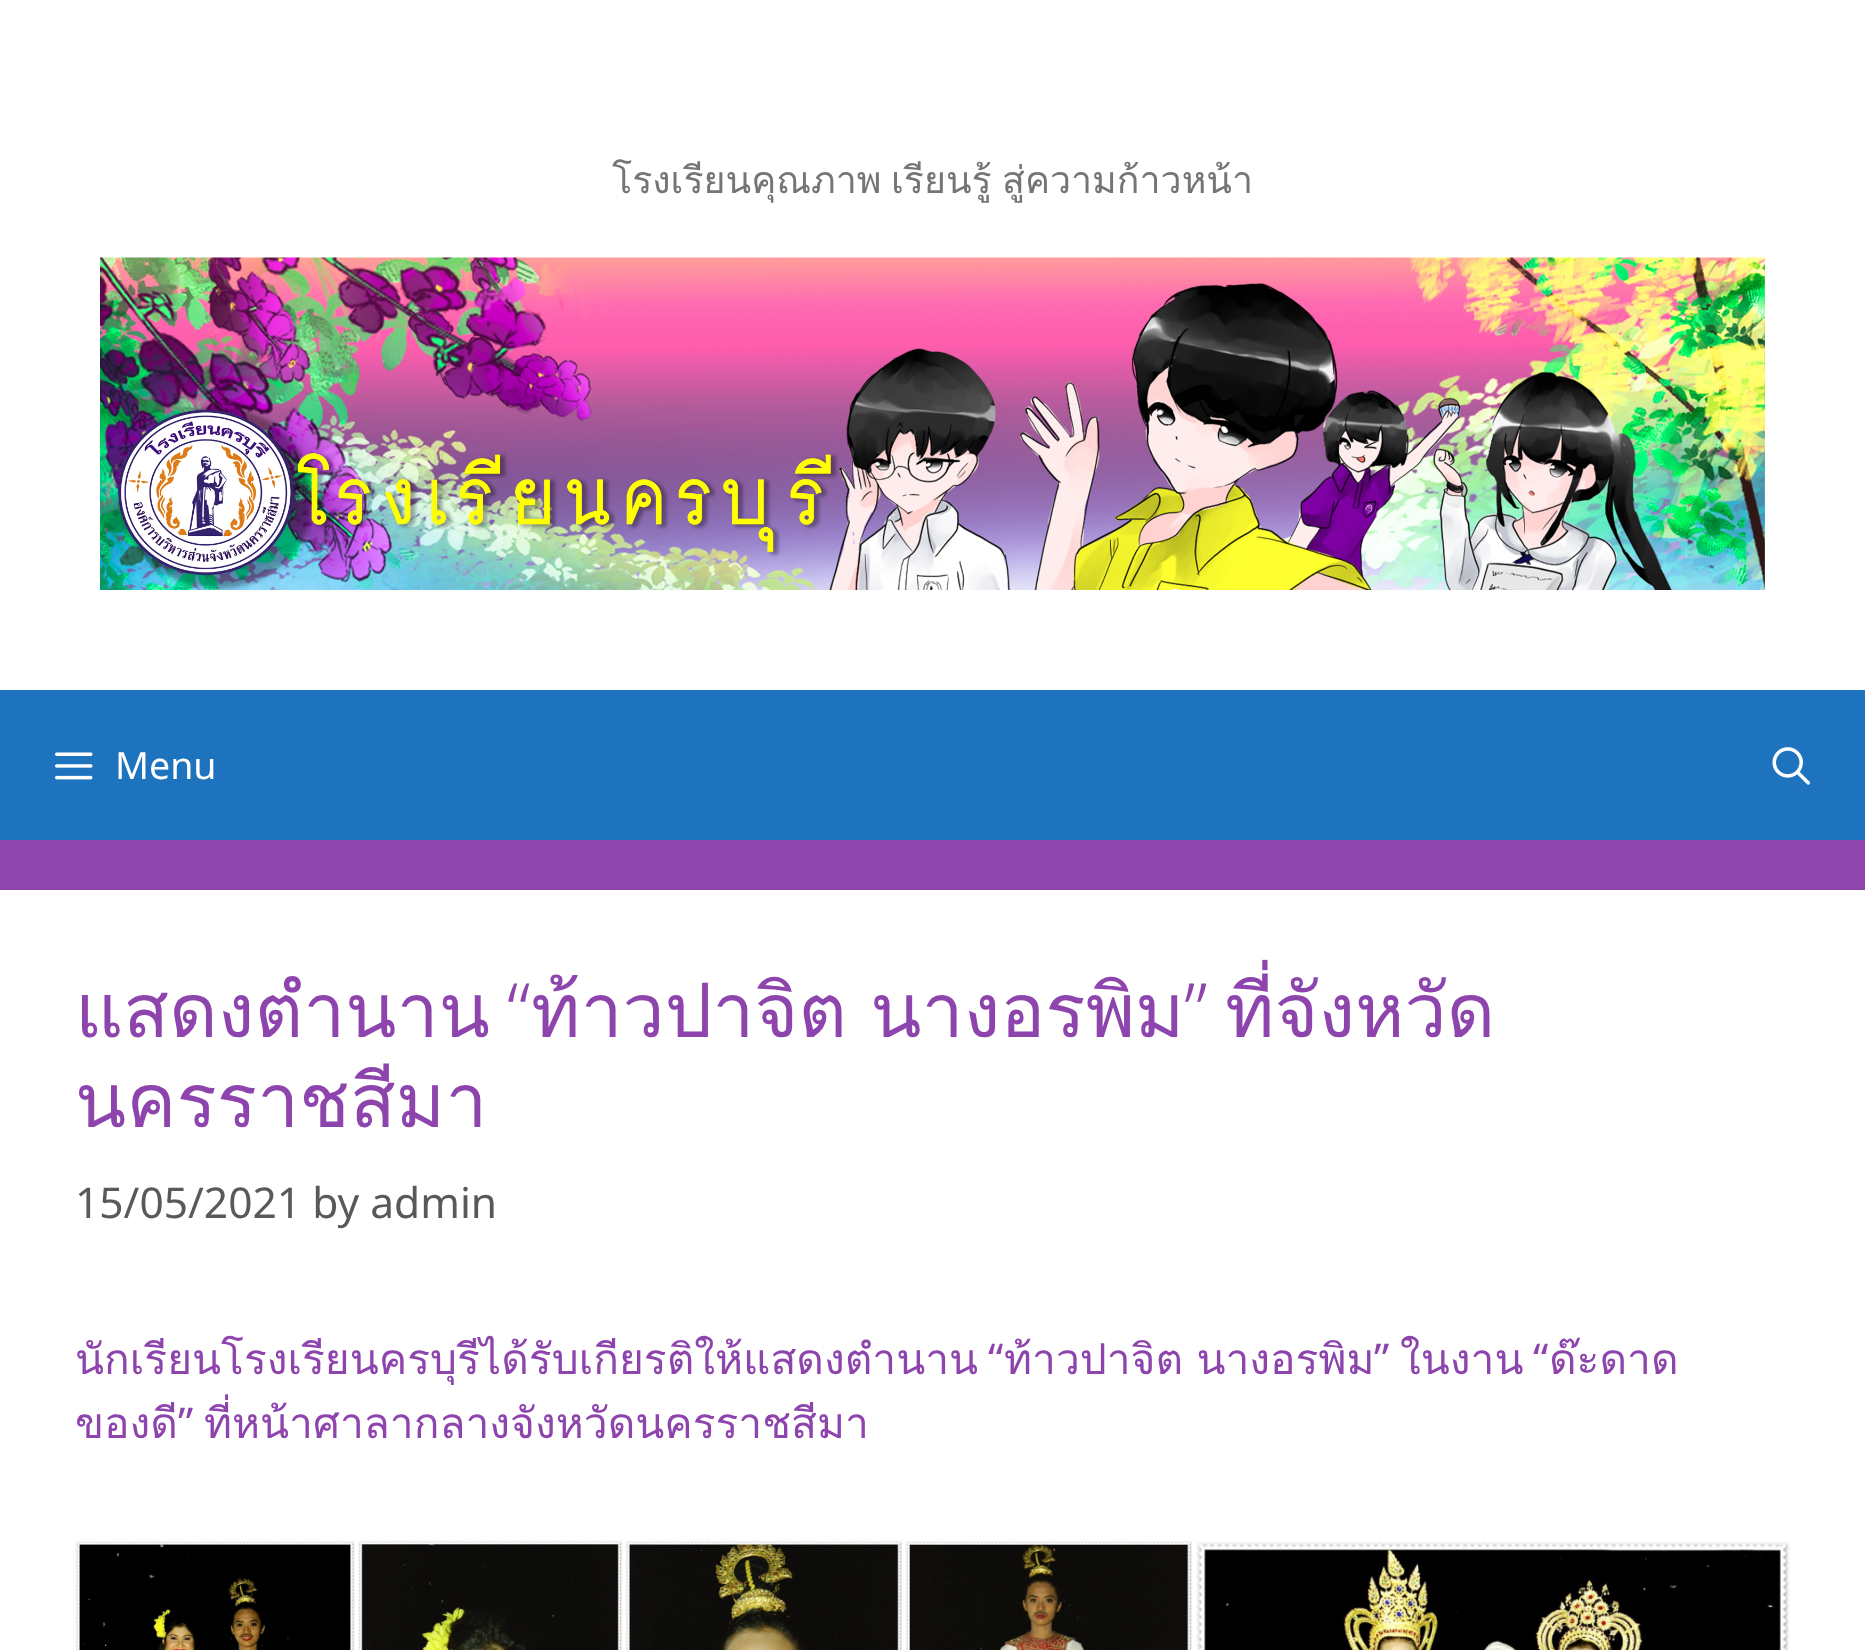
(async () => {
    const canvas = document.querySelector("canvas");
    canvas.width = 1865;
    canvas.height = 1650;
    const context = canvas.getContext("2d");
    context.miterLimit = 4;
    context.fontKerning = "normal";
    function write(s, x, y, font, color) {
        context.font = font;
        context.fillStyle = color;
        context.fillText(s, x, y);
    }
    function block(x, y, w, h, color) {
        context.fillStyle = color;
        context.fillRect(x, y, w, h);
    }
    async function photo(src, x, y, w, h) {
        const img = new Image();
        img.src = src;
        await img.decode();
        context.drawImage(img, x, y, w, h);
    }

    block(0, 0, 1865, 1650, "rgb(142, 69, 173)");
    block(0, 0, 1865, 690, "rgb(255, 255, 255)");
    write("โรงเรียนคุณภาพ", 612, 193, "37.5px Loma", "rgb(117, 117, 117)");
    write("เรียนรู้", 891, 193, "37.5px Loma", "rgb(117, 117, 117)");
    write("สู่ความก้าวหน้า", 1002, 193, "37.5px Loma", "rgb(117, 117, 117)");
    await photo("media/1.png", 100, 257, 1665, 333);
    block(0, 690, 1865, 150, "rgb(30, 115, 190)");
    await photo("media/2.png", 55, 752, 38, 28);
    write("Menu", 115, 779, "37.5px Noto Sans", "rgb(255, 255, 255)");
    await photo("media/3.png", 1772, 747, 38, 38);
    block(0, 890, 1865, 760, "rgb(255, 255, 255)");
    write("แสดงตำนาน", 75, 1037, "75px Loma", "rgb(142, 68, 173)");
    write("“", 507, 1037, "300 75px Noto Sans", "rgb(142, 68, 173)");
    context.wordSpacing = "-2px";
    write("ท้าวปาจิต นางอรพิม", 531, 1037, "75px Loma", "rgb(142, 68, 173)");
    context.wordSpacing = "0px";
    write("”", 1184, 1037, "300 75px Noto Sans", "rgb(142, 68, 173)");
    write("ที่จังหวัด", 1225, 1037, "75px Loma", "rgb(142, 68, 173)");
    write("นครราชสีมา", 75, 1127, "75px Loma", "rgb(142, 68, 173)");
    write("15/05/2021 by admin", 75, 1218, "42.5px Noto Sans", "rgb(89, 89, 89)");
    write("นักเรียนโรงเรียนครบุรีได้รับเกียรติให้แสดงตำนาน", 75, 1374, "42.5px Loma", "rgb(142, 68, 173)");
    write("“", 988, 1374, "42.5px Noto Sans", "rgb(142, 68, 173)");
    context.wordSpacing = "-1px";
    write("ท้าวปาจิต นางอรพิม", 1004, 1374, "42.5px Loma", "rgb(142, 68, 173)");
    context.wordSpacing = "0px";
    write("ในงาน", 1400, 1374, "42.5px Loma", "rgb(142, 68, 173)");
    write("“", 1533, 1374, "42.5px Noto Sans", "rgb(142, 68, 173)");
    write("ด๊ะดาด", 1549, 1374, "42.5px Loma", "rgb(142, 68, 173)");
    write("”", 1374, 1374, "42.5px Noto Sans", "rgb(142, 68, 173)");
    write("ของดี", 75, 1438, "42.5px Loma", "rgb(142, 68, 173)");
    write("”", 178, 1438, "42.5px Noto Sans", "rgb(142, 68, 173)");
    write("ที่หน้าศาลากลางจังหวัดนครราชสีมา", 204, 1438, "42.5px Loma", "rgb(142, 68, 173)");
    await photo("media/4.png", 75, 1540, 280, 110);
    await photo("media/5.png", 358, 1540, 264, 110);
    await photo("media/6.png", 625, 1540, 277, 110);
    await photo("media/7.png", 905, 1540, 287, 110);
    await photo("media/8.png", 1196, 1541, 594, 109);
})();
